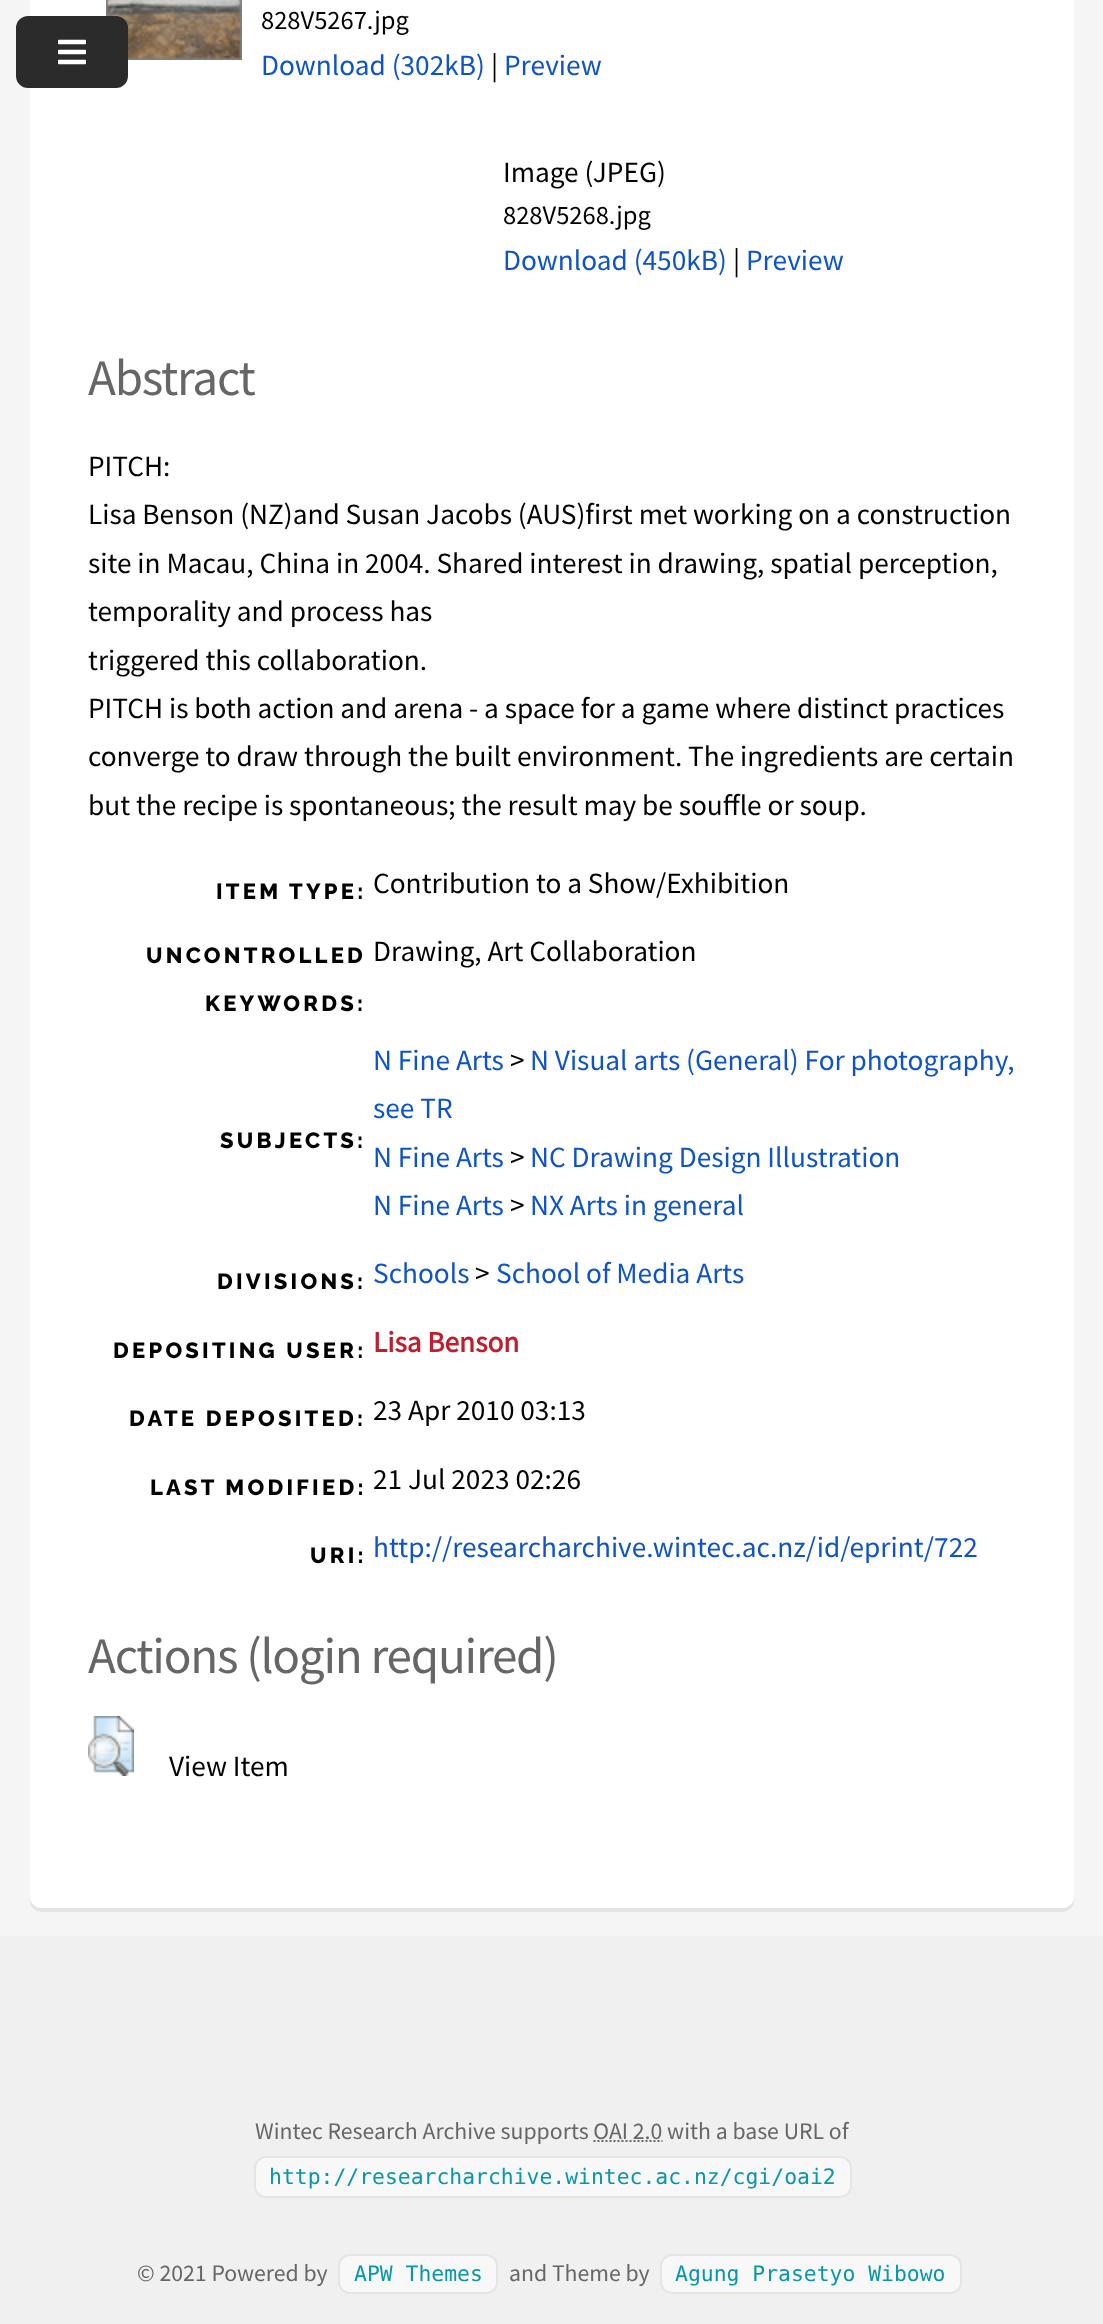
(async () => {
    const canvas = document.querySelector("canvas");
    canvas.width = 1103;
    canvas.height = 2324;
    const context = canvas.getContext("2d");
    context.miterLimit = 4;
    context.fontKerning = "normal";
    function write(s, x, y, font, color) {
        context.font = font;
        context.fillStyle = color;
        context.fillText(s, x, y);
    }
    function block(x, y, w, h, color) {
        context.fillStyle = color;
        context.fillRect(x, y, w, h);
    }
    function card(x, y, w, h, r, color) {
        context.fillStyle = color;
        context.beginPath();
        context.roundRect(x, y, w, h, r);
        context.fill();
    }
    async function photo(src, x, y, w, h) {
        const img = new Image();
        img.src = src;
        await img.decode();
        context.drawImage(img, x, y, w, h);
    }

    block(0, 0, 1103, 2324, "rgb(245, 245, 245)");
    context.fillStyle = "rgb(229, 229, 229)";
    context.beginPath();
    context.moveTo(30, 1896);
    context.lineTo(30, 1900);
    context.bezierCurveTo(30, 1907, 35, 1912, 42, 1912);
    context.lineTo(1062, 1912);
    context.bezierCurveTo(1069, 1912, 1074, 1907, 1074, 1900);
    context.lineTo(1074, 1896);
    context.bezierCurveTo(1074, 1903, 1069, 1908, 1062, 1908);
    context.lineTo(42, 1908);
    context.bezierCurveTo(35, 1908, 30, 1903, 30, 1896);
    context.closePath();
    context.fill();
    card(30, -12, 1044, 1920, 12, "rgb(255, 255, 255)");
    await photo("media/2.png", 106, 0, 136, 60);
    card(16, 16, 112, 72, 12, "rgb(43, 43, 43)");
    await photo("media/1.png", 58, 39, 28, 26);
    write("828V5267.jpg", 261, 29, "26.5px Source Sans Pro", "rgb(0, 0, 0)");
    write("Download (302kB)", 261, 75, "29.3px Source Sans Pro", "rgb(14, 83, 200)");
    write("|", 491, 75, "29.3px Source Sans Pro", "rgb(0, 0, 0)");
    write("Preview", 504, 75, "29.3px Source Sans Pro", "rgb(14, 83, 200)");
    write("Image (JPEG)", 503, 182, "29.3px Source Sans Pro", "rgb(0, 0, 0)");
    write("828V5268.jpg", 503, 224, "26.5px Source Sans Pro", "rgb(0, 0, 0)");
    write("Download (450kB)", 503, 270, "29.3px Source Sans Pro", "rgb(14, 83, 200)");
    write("|", 733, 270, "29.3px Source Sans Pro", "rgb(0, 0, 0)");
    write("Preview", 746, 270, "29.3px Source Sans Pro", "rgb(14, 83, 200)");
    context.letterSpacing = "-1.25px";
    write("Abstract", 88, 395, "51.25px Source Sans Pro", "rgb(102, 102, 102)");
    context.letterSpacing = "0px";
    write("PITCH:", 88, 476, "29.3px Source Sans Pro", "rgb(0, 0, 0)");
    write("Lisa Benson (NZ)and Susan Jacobs (AUS)first met working on a construction", 88, 524, "29.3px Source Sans Pro", "rgb(0, 0, 0)");
    write("site in Macau, China in 2004. Shared interest in drawing, spatial perception,", 88, 573, "29.3px Source Sans Pro", "rgb(0, 0, 0)");
    write("temporality and process has", 88, 621, "29.3px Source Sans Pro", "rgb(0, 0, 0)");
    write("triggered this collaboration.", 88, 670, "29.3px Source Sans Pro", "rgb(0, 0, 0)");
    write("PITCH is both action and arena - a space for a game where distinct practices", 88, 718, "29.3px Source Sans Pro", "rgb(0, 0, 0)");
    write("converge to draw through the built environment.", 88, 766, "29.3px Source Sans Pro", "rgb(0, 0, 0)");
    write("The ingredients are certain", 688, 766, "29.3px Source Sans Pro", "rgb(0, 0, 0)");
    write("but the recipe is spontaneous; the result may be souffle or soup.", 88, 815, "29.3px Source Sans Pro", "rgb(0, 0, 0)");
    context.letterSpacing = "3.25px";
    write("ITEM TYPE:", 216, 899, "800 22px Raleway", "rgb(0, 0, 0)");
    context.letterSpacing = "0px";
    write("Contribution to a Show/Exhibition", 373, 893, "29.3px Source Sans Pro", "rgb(0, 0, 0)");
    context.letterSpacing = "3.25px";
    write("UNCONTROLLED", 146, 963, "800 22px Raleway", "rgb(0, 0, 0)");
    write("KEYWORDS:", 205, 1011, "800 22px Raleway", "rgb(0, 0, 0)");
    context.letterSpacing = "0px";
    write("Drawing, Art Collaboration", 373, 961, "29.3px Source Sans Pro", "rgb(0, 0, 0)");
    context.letterSpacing = "3.25px";
    write("SUBJECTS:", 220, 1148, "800 22px Raleway", "rgb(0, 0, 0)");
    context.letterSpacing = "0px";
    write("N Fine Arts", 373, 1070, "29.3px Source Sans Pro", "rgb(14, 83, 200)");
    write(">", 510, 1070, "29.3px Source Sans Pro", "rgb(0, 0, 0)");
    write("N Visual arts (General) For photography,", 530, 1070, "29.3px Source Sans Pro", "rgb(14, 83, 200)");
    write("see TR", 373, 1118, "29.3px Source Sans Pro", "rgb(14, 83, 200)");
    write("N Fine Arts", 373, 1167, "29.3px Source Sans Pro", "rgb(14, 83, 200)");
    write(">", 510, 1167, "29.3px Source Sans Pro", "rgb(0, 0, 0)");
    write("NC Drawing Design Illustration", 530, 1167, "29.3px Source Sans Pro", "rgb(14, 83, 200)");
    write("N Fine Arts", 373, 1215, "29.3px Source Sans Pro", "rgb(14, 83, 200)");
    write(">", 510, 1215, "29.3px Source Sans Pro", "rgb(0, 0, 0)");
    write("NX Arts in general", 530, 1215, "29.3px Source Sans Pro", "rgb(14, 83, 200)");
    context.letterSpacing = "3.25px";
    write("DIVISIONS:", 217, 1289, "800 22px Raleway", "rgb(0, 0, 0)");
    context.letterSpacing = "0px";
    write("Schools", 373, 1283, "29.3px Source Sans Pro", "rgb(14, 83, 200)");
    write(">", 475, 1283, "29.3px Source Sans Pro", "rgb(0, 0, 0)");
    write("School of Media Arts", 496, 1283, "29.3px Source Sans Pro", "rgb(14, 83, 200)");
    context.letterSpacing = "3.25px";
    write("DEPOSITING USER:", 113, 1358, "800 22px Raleway", "rgb(0, 0, 0)");
    context.letterSpacing = "0px";
    write("Lisa Benson", 373, 1352, "bold 29.3px Source Sans Pro", "rgb(191, 30, 46)");
    context.letterSpacing = "3.25px";
    write("DATE DEPOSITED:", 129, 1426, "800 22px Raleway", "rgb(0, 0, 0)");
    context.letterSpacing = "0px";
    write("23 Apr 2010 03:13", 373, 1420, "29.3px Source Sans Pro", "rgb(0, 0, 0)");
    context.letterSpacing = "3.25px";
    write("LAST MODIFIED:", 150, 1495, "800 22px Raleway", "rgb(0, 0, 0)");
    context.letterSpacing = "0px";
    write("21 Jul 2023 02:26", 373, 1489, "29.3px Source Sans Pro", "rgb(0, 0, 0)");
    context.letterSpacing = "3.25px";
    write("URI:", 310, 1563, "800 22px Raleway", "rgb(0, 0, 0)");
    context.letterSpacing = "0px";
    write("http://researcharchive.wintec.ac.nz/id/eprint/722", 373, 1557, "29.3px Source Sans Pro", "rgb(14, 83, 200)");
    context.letterSpacing = "-1.25px";
    write("Actions (login required)", 88, 1673, "51.25px Source Sans Pro", "rgb(102, 102, 102)");
    await photo("media/3.png", 88, 1716, 46, 60);
    context.letterSpacing = "0px";
    write("View Item", 169, 1776, "29.3px Source Sans Pro", "rgb(0, 0, 0)");
    block(0, 1936, 1103, 388, "rgb(240, 240, 240)");
    write("Wintec Research Archive supports OAI 2.0 with a base URL of", 255, 2139, "23.75px Source Sans Pro", "rgb(102, 102, 102)");
    context.beginPath();
    context.moveTo(593.5, 2141);
    context.lineTo(662.5, 2141);
    context.strokeStyle = "rgb(102, 102, 102)";
    context.lineWidth = 2;
    context.setLineDash([2, 2]);
    context.stroke();
    context.fillStyle = "rgb(248, 248, 248)";
    context.beginPath();
    context.roundRect(255, 2157, 596, 40, 11);
    context.fill();
    context.strokeStyle = "rgb(229, 229, 229)";
    context.setLineDash([]);
    context.stroke();
    write("http://researcharchive.wintec.ac.nz/cgi/oai2", 269, 2184, "21.4px DejaVu Sans Mono", "rgb(10, 150, 169)");
    write("© 2021 Powered by", 137, 2281, "23.75px Source Sans Pro", "rgb(102, 102, 102)");
    context.fillStyle = "rgb(248, 248, 248)";
    context.beginPath();
    context.roundRect(339, 2255, 158, 38, 11);
    context.fill();
    context.stroke();
    write("APW Themes", 354, 2281, "21.4px DejaVu Sans Mono", "rgb(10, 150, 169)");
    write("and Theme by", 509, 2281, "23.75px Source Sans Pro", "rgb(102, 102, 102)");
    context.fillStyle = "rgb(248, 248, 248)";
    context.beginPath();
    context.roundRect(661, 2255, 300, 38, 11);
    context.fill();
    context.stroke();
    write("Agung Prasetyo Wibowo", 675, 2281, "21.4px DejaVu Sans Mono", "rgb(10, 150, 169)");
})();
